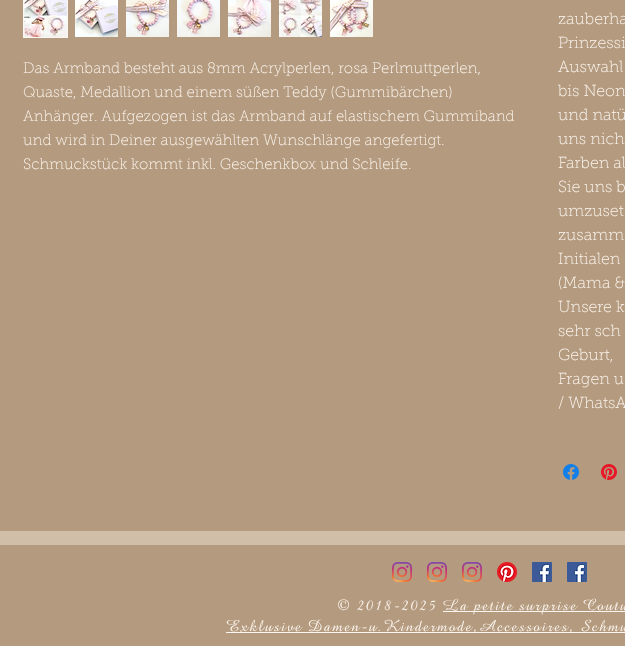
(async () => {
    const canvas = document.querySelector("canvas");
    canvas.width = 625;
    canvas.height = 646;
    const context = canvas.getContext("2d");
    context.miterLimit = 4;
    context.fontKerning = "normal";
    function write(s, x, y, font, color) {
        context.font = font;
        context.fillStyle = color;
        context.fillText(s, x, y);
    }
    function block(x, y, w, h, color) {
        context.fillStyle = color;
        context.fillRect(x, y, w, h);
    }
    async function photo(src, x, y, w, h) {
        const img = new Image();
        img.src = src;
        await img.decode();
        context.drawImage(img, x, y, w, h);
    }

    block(0, 0, 625, 646, "rgb(209, 190, 169)");
    block(0, 0, 625, 531, "rgb(180, 155, 127)");
    context.strokeStyle = "rgb(253, 246, 240)";
    context.strokeRect(23.5, -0.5, 44, 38);
    await photo("media/1.png", 24, 0, 43, 37);
    await photo("media/2.png", 75, 0, 43, 37);
    await photo("media/3.png", 126, 0, 43, 37);
    await photo("media/4.png", 177, 0, 43, 37);
    await photo("media/5.png", 228, 0, 43, 37);
    await photo("media/6.png", 279, 0, 43, 37);
    await photo("media/7.png", 330, 0, 43, 37);
    write("Das Armband besteht aus 8mm Acrylperlen, rosa Perlmuttperlen,", 23, 73, "100 15px 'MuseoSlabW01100'", "rgb(253, 246, 240)");
    write("Quaste, Medallion und einem süßen Teddy (Gummibärchen)", 23, 97, "100 15px 'MuseoSlabW01100'", "rgb(253, 246, 240)");
    write("Anhänger. Aufgezogen ist das Armband auf elastischem Gummiband", 23, 121, "100 15px 'MuseoSlabW01100'", "rgb(253, 246, 240)");
    write("und wird in Deiner ausgewählten Wunschlänge angefertigt.", 23, 145, "100 15px 'MuseoSlabW01100'", "rgb(253, 246, 240)");
    write("Schmuckstück kommt inkl. Geschenkbox und Schleife.", 23, 169, "100 15px 'MuseoSlabW01100'", "rgb(253, 246, 240)");
    write("zauberha", 558, 24, "100 16px 'MuseoSlabW01100'", "rgb(253, 246, 240)");
    write("Prinzessi", 558, 48, "100 16px 'MuseoSlabW01100'", "rgb(253, 246, 240)");
    write("Auswahl", 558, 72, "100 16px 'MuseoSlabW01100'", "rgb(253, 246, 240)");
    write("bis Neon", 558, 96, "100 16px 'MuseoSlabW01100'", "rgb(253, 246, 240)");
    write("und natü", 558, 120, "100 16px 'MuseoSlabW01100'", "rgb(253, 246, 240)");
    write("uns nich", 558, 144, "100 16px 'MuseoSlabW01100'", "rgb(253, 246, 240)");
    write("Farben al", 558, 168, "100 16px 'MuseoSlabW01100'", "rgb(253, 246, 240)");
    write("Sie uns b", 558, 192, "100 16px 'MuseoSlabW01100'", "rgb(253, 246, 240)");
    write("umzuset", 558, 216, "100 16px 'MuseoSlabW01100'", "rgb(253, 246, 240)");
    write("zusamm", 558, 240, "100 16px 'MuseoSlabW01100'", "rgb(253, 246, 240)");
    write("Initialen", 558, 264, "100 16px 'MuseoSlabW01100'", "rgb(253, 246, 240)");
    write("(Mama &", 558, 288, "100 16px 'MuseoSlabW01100'", "rgb(253, 246, 240)");
    write("Unsere k", 558, 312, "100 16px 'MuseoSlabW01100'", "rgb(253, 246, 240)");
    write("sehr sch", 558, 336, "100 16px 'MuseoSlabW01100'", "rgb(253, 246, 240)");
    write("Geburt,", 558, 360, "100 16px 'MuseoSlabW01100'", "rgb(253, 246, 240)");
    write("Fragen u", 558, 384, "100 16px 'MuseoSlabW01100'", "rgb(253, 246, 240)");
    write("/ WhatsA", 558, 408, "100 16px 'MuseoSlabW01100'", "rgb(253, 246, 240)");
    await photo("media/8.png", 563, 464, 16, 16);
    await photo("media/9.png", 601, 464, 16, 16);
    block(0, 545, 625, 101, "rgb(180, 155, 127)");
    await photo("media/10.png", 392, 562, 20, 20);
    await photo("media/10.png", 427, 562, 20, 20);
    await photo("media/10.png", 462, 562, 20, 20);
    await photo("media/11.png", 497, 562, 20, 20);
    await photo("media/12.png", 532, 562, 20, 20);
    await photo("media/12.png", 567, 562, 20, 20);
    context.letterSpacing = "1.6px";
    write("© 2018-2025", 337, 610, "italic 16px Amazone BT", "rgb(253, 246, 240)");
    block(443, 611, 182, 1, "rgb(253, 246, 240)");
    write("La petite surprise Coutu", 443, 610, "italic 16px Amazone BT", "rgb(253, 246, 240)");
    block(226, 632, 399, 1, "rgb(253, 246, 240)");
    write("Exklusive Damen-u.Kindermode,Accessoires, Schmu", 226, 631, "italic 16px Amazone BT", "rgb(253, 246, 240)");
})();
